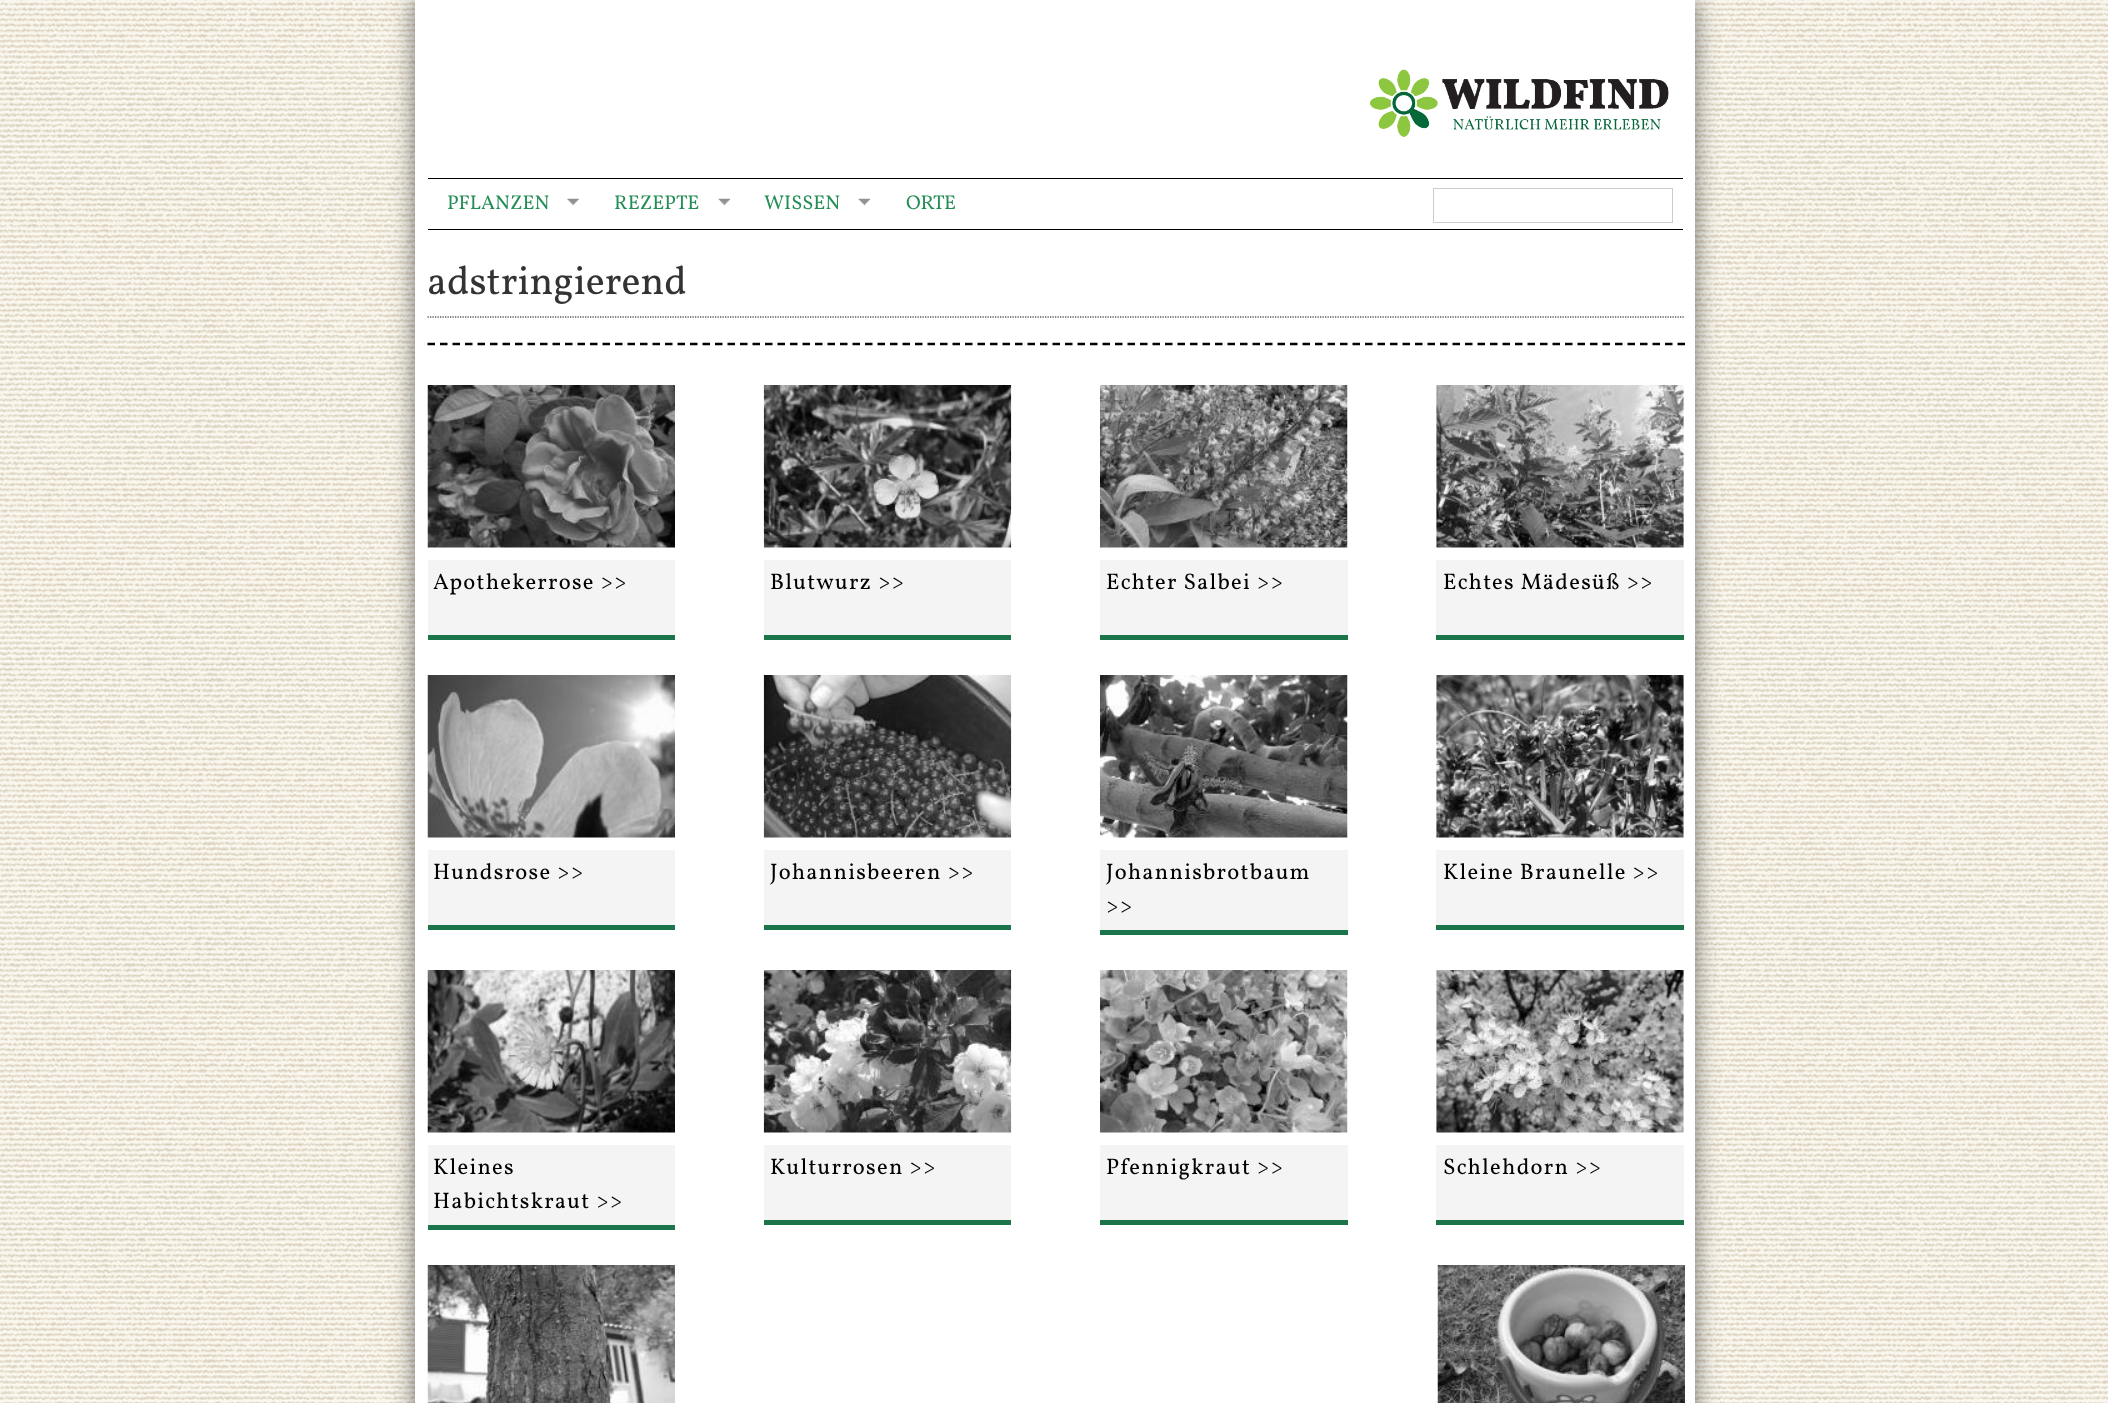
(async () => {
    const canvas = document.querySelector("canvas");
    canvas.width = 2108;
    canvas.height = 1403;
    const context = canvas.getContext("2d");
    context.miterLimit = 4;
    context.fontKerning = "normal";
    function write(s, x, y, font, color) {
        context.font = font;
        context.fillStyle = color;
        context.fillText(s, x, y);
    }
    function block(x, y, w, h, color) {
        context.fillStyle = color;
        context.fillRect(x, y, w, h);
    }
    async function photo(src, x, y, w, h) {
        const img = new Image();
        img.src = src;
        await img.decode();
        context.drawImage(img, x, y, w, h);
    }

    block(0, 0, 2108, 1403, "rgb(255, 255, 255)");
    await photo("media/1.png", 0, 0, 2108, 1403);
    context.fillStyle = "rgba(16, 16, 16, 0.58)";
    context.filter = "blur(12.5px)";
    context.beginPath();
    context.rect(415, 0, 1280, 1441);
    context.fill();
    context.filter = "none";
    block(415, 0, 1280, 1403, "rgb(255, 255, 255)");
    block(428, 178, 1255, 1, "rgb(0, 0, 0)");
    block(428, 229, 1255, 1, "rgb(0, 0, 0)");
    write("PFLANZEN", 447, 209, "20px Vollkorn", "rgb(37, 142, 87)");
    await photo("media/2.png", 567, 198, 12, 8);
    write("REZEPTE", 614, 209, "20px Vollkorn", "rgb(37, 142, 87)");
    await photo("media/3.png", 718, 198, 12, 8);
    write("WISSEN", 764, 209, "20px Vollkorn", "rgb(37, 142, 87)");
    await photo("media/3.png", 858, 198, 12, 8);
    write("ORTE", 906, 209, "20px Vollkorn", "rgb(37, 142, 87)");
    await photo("media/4.png", 1370, 69, 299, 68);
    context.strokeStyle = "rgb(204, 204, 204)";
    context.strokeRect(1433.5, 188.5, 239, 34);
    context.beginPath();
    context.moveTo(427.5, 317);
    context.lineTo(1685, 317);
    context.strokeStyle = "rgb(0, 0, 0)";
    context.lineWidth = 1.2;
    context.setLineDash([1.25, 1.25]);
    context.stroke();
    write("adstringierend", 427, 294, "40px Vollkorn", "rgb(51, 51, 51)");
    context.beginPath();
    context.moveTo(427.5, 344);
    context.lineTo(1685, 344);
    context.lineWidth = 2.5;
    context.setLineDash([7.5, 5]);
    context.stroke();
    await photo("media/5.png", 427, 385, 248, 163);
    block(428, 560, 247, 75, "rgb(244, 244, 244)");
    block(428, 635, 247, 5, "rgb(27, 116, 74)");
    context.letterSpacing = "1.25px";
    write("Apothekerrose >>", 433, 589, "22.5px Vollkorn", "rgb(0, 0, 0)");
    await photo("media/6.png", 763, 385, 249, 163);
    block(764, 560, 247, 75, "rgb(244, 244, 244)");
    block(764, 635, 247, 5, "rgb(27, 116, 74)");
    write("Blutwurz >>", 770, 589, "22.5px Vollkorn", "rgb(0, 0, 0)");
    await photo("media/7.png", 1100, 385, 248, 163);
    block(1100, 560, 248, 75, "rgb(244, 244, 244)");
    block(1100, 635, 248, 5, "rgb(27, 116, 74)");
    write("Echter Salbei >>", 1106, 589, "22.5px Vollkorn", "rgb(0, 0, 0)");
    await photo("media/8.png", 1436, 385, 248, 163);
    block(1436, 560, 248, 75, "rgb(244, 244, 244)");
    block(1436, 635, 248, 5, "rgb(27, 116, 74)");
    write("Echtes Mädesüß >>", 1443, 589, "22.5px Vollkorn", "rgb(0, 0, 0)");
    await photo("media/9.png", 427, 675, 248, 163);
    block(428, 850, 247, 75, "rgb(244, 244, 244)");
    block(428, 925, 247, 5, "rgb(27, 116, 74)");
    write("Hundsrose >>", 433, 879, "22.5px Vollkorn", "rgb(0, 0, 0)");
    await photo("media/10.png", 763, 675, 249, 163);
    block(764, 850, 247, 75, "rgb(244, 244, 244)");
    block(764, 925, 247, 5, "rgb(27, 116, 74)");
    write("Johannisbeeren >>", 770, 879, "22.5px Vollkorn", "rgb(0, 0, 0)");
    await photo("media/11.png", 1100, 675, 248, 163);
    block(1100, 850, 248, 80, "rgb(244, 244, 244)");
    block(1100, 930, 248, 5, "rgb(27, 116, 74)");
    write("Johannisbrotbaum", 1106, 879, "22.5px Vollkorn", "rgb(0, 0, 0)");
    write(">>", 1106, 913, "22.5px Vollkorn", "rgb(0, 0, 0)");
    await photo("media/12.png", 1436, 675, 248, 163);
    block(1436, 850, 248, 75, "rgb(244, 244, 244)");
    block(1436, 925, 248, 5, "rgb(27, 116, 74)");
    write("Kleine Braunelle >>", 1443, 879, "22.5px Vollkorn", "rgb(0, 0, 0)");
    await photo("media/13.png", 427, 970, 248, 163);
    block(428, 1145, 247, 80, "rgb(244, 244, 244)");
    block(428, 1225, 247, 5, "rgb(27, 116, 74)");
    write("Kleines", 433, 1174, "22.5px Vollkorn", "rgb(0, 0, 0)");
    write("Habichtskraut >>", 433, 1208, "22.5px Vollkorn", "rgb(0, 0, 0)");
    await photo("media/14.png", 763, 970, 249, 163);
    block(764, 1145, 247, 75, "rgb(244, 244, 244)");
    block(764, 1220, 247, 5, "rgb(27, 116, 74)");
    write("Kulturrosen >>", 770, 1174, "22.5px Vollkorn", "rgb(0, 0, 0)");
    await photo("media/15.png", 1100, 970, 248, 163);
    block(1100, 1145, 248, 75, "rgb(244, 244, 244)");
    block(1100, 1220, 248, 5, "rgb(27, 116, 74)");
    write("Pfennigkraut >>", 1106, 1174, "22.5px Vollkorn", "rgb(0, 0, 0)");
    await photo("media/16.png", 1436, 970, 248, 163);
    block(1436, 1145, 248, 75, "rgb(244, 244, 244)");
    block(1436, 1220, 248, 5, "rgb(27, 116, 74)");
    write("Schlehdorn >>", 1443, 1174, "22.5px Vollkorn", "rgb(0, 0, 0)");
    await photo("media/17.png", 427, 1265, 248, 138);
    await photo("media/18.png", 1437, 1265, 248, 138);
})();
